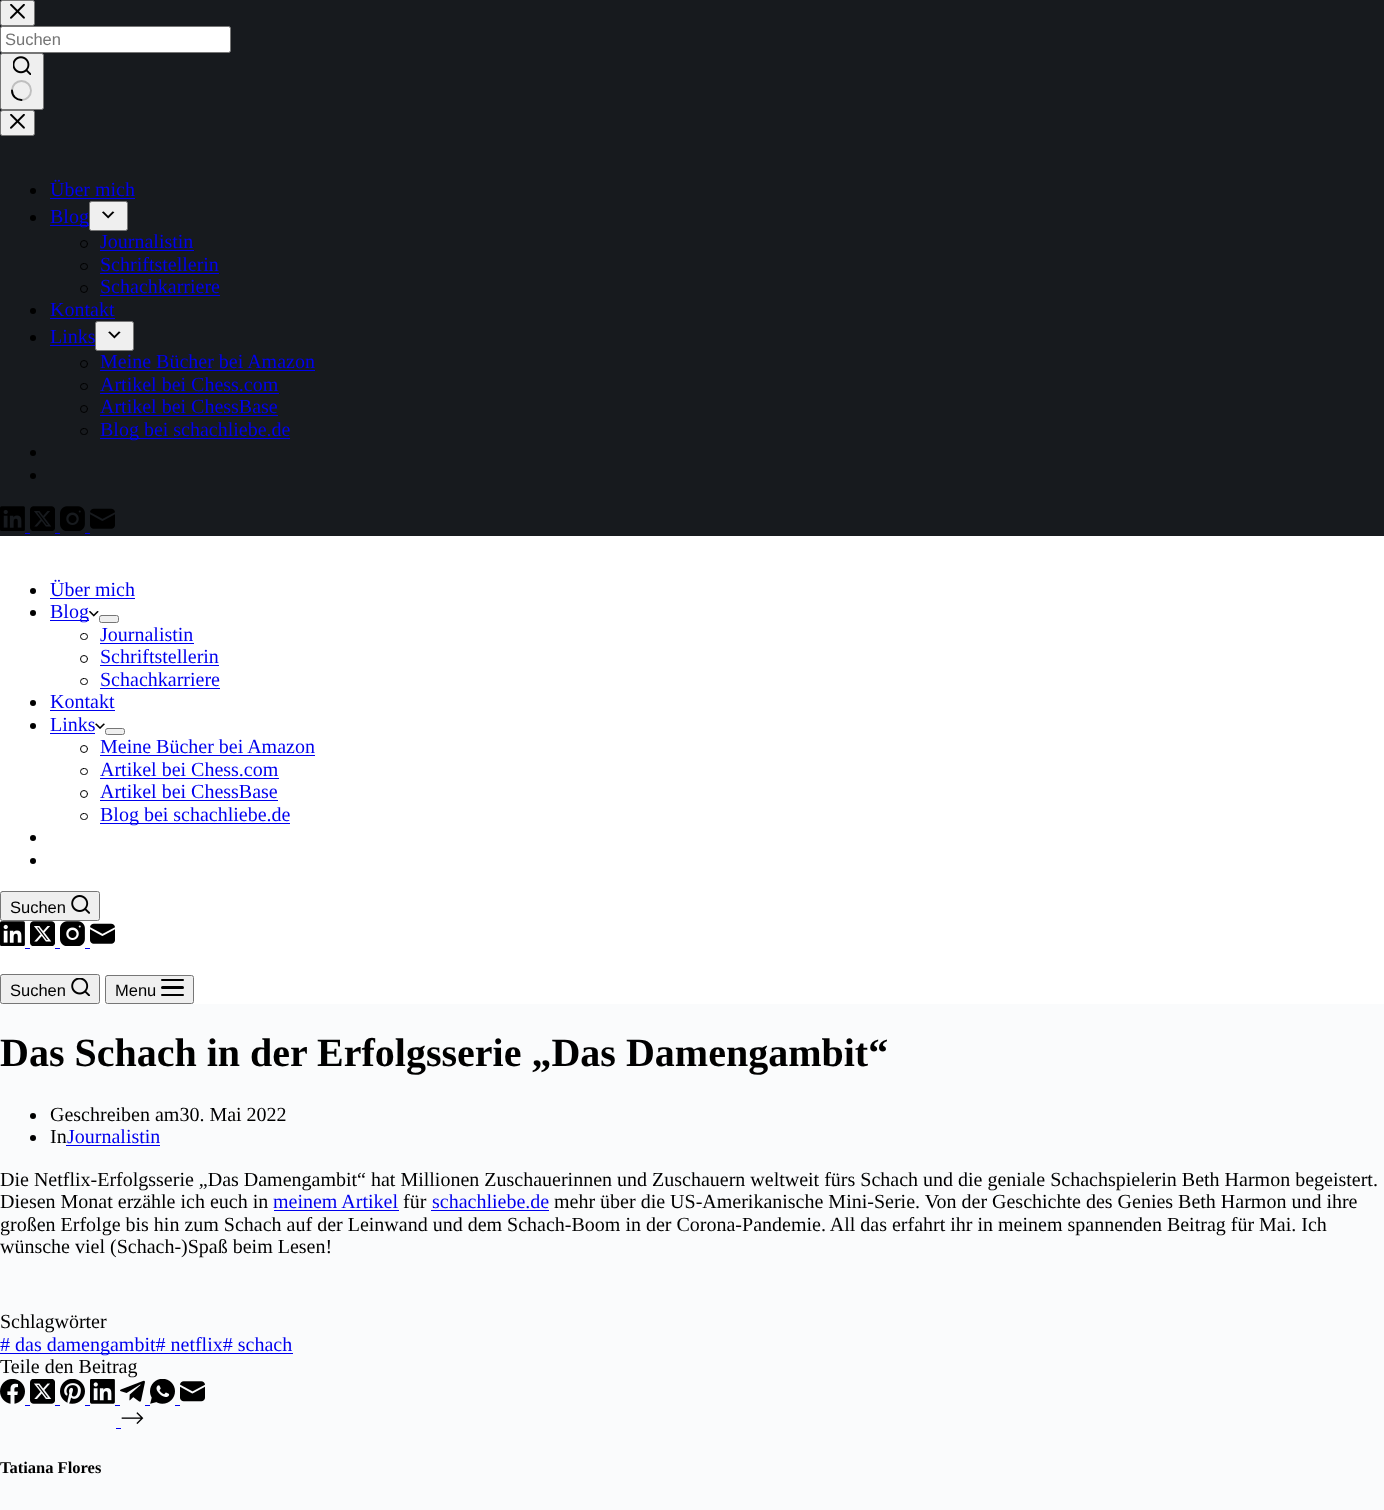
(async () => {
    const canvas = document.querySelector("canvas");
    canvas.width = 1384;
    canvas.height = 1510;
    const context = canvas.getContext("2d");
    context.miterLimit = 4;
    context.fontKerning = "normal";
    function write(s, x, y, font, color) {
        context.font = font;
        context.fillStyle = color;
        context.fillText(s, x, y);
    }
    function block(x, y, w, h, color) {
        context.fillStyle = color;
        context.fillRect(x, y, w, h);
    }
    function card(x, y, w, h, r, color) {
        context.fillStyle = color;
        context.beginPath();
        context.roundRect(x, y, w, h, r);
        context.fill();
    }
    async function photo(src, x, y, w, h) {
        const img = new Image();
        img.src = src;
        await img.decode();
        context.drawImage(img, x, y, w, h);
    }

    block(0, 0, 1384, 1510, "rgb(250, 251, 252)");
    block(0, 0, 1384, 536, "rgb(23, 26, 30)");
    context.fillStyle = "rgb(239, 239, 239)";
    context.beginPath();
    context.roundRect(0.5, 0.5, 34, 25, 2);
    context.fill();
    context.strokeStyle = "rgb(118, 118, 118)";
    context.stroke();
    await photo("media/1.png", 10, 4, 15, 15);
    context.fillStyle = "rgb(255, 255, 255)";
    context.beginPath();
    context.roundRect(0.5, 26.5, 230, 26, 2);
    context.fill();
    context.stroke();
    write("Suchen", 5, 45, "16.5px Liberation Sans", "rgb(117, 117, 117)");
    context.fillStyle = "rgb(239, 239, 239)";
    context.beginPath();
    context.roundRect(0.5, 53.5, 43, 56, 2);
    context.fill();
    context.stroke();
    await photo("media/2.png", 13, 56, 18, 19);
    context.beginPath();
    context.arc(21.5, 90.5, 9.5, 0, Math.PI * 2);
    context.strokeStyle = "rgb(191, 191, 191)";
    context.lineWidth = 1.9;
    context.stroke();
    context.beginPath();
    context.moveTo(21.5, 100);
    context.bezierCurveTo(16.5, 100, 12, 96, 12, 90.5);
    context.strokeStyle = "rgb(0, 0, 0)";
    context.lineCap = "round";
    context.stroke();
    context.beginPath();
    context.roundRect(0.5, 110.5, 34, 25, 2);
    context.fill();
    context.strokeStyle = "rgb(118, 118, 118)";
    context.lineWidth = 1;
    context.stroke();
    await photo("media/1.png", 10, 114, 15, 15);
    context.fillStyle = "rgb(0, 0, 0)";
    context.beginPath();
    context.arc(33, 191, 3, 0, Math.PI * 2);
    context.fill();
    write("Über mich", 50, 196, "20px Liberation Serif", "rgb(0, 0, 238)");
    block(50, 198, 85, 1, "rgb(0, 0, 238)");
    context.fillStyle = "rgb(0, 0, 0)";
    context.beginPath();
    context.arc(33, 218, 3, 0, Math.PI * 2);
    context.fill();
    block(50, 225, 39, 1, "rgb(0, 0, 238)");
    write("Blog", 50, 223, "20px Liberation Serif", "rgb(0, 0, 238)");
    context.fillStyle = "rgb(239, 239, 239)";
    context.beginPath();
    context.roundRect(89.5, 201.5, 38, 29, 2);
    context.fill();
    context.stroke();
    await photo("media/3.png", 102, 211, 13, 8);
    context.beginPath();
    context.arc(84, 244, 3.5, 0, Math.PI * 2);
    context.strokeStyle = "rgb(0, 0, 0)";
    context.stroke();
    write("Journalistin", 100, 248, "20px Liberation Serif", "rgb(0, 0, 238)");
    block(100, 250, 94, 1, "rgb(0, 0, 238)");
    context.beginPath();
    context.roundRect(80.5, 263.5, 7, 6, 3);
    context.stroke();
    write("Schriftstellerin", 100, 271, "20px Liberation Serif", "rgb(0, 0, 238)");
    block(100, 273, 119, 1, "rgb(0, 0, 238)");
    context.beginPath();
    context.arc(84, 289, 3.5, 0, Math.PI * 2);
    context.stroke();
    write("Schachkarriere", 100, 293, "20px Liberation Serif", "rgb(0, 0, 238)");
    block(100, 295, 120, 1, "rgb(0, 0, 238)");
    context.fillStyle = "rgb(0, 0, 0)";
    context.beginPath();
    context.arc(33, 311, 3, 0, Math.PI * 2);
    context.fill();
    write("Kontakt", 50, 316, "20px Liberation Serif", "rgb(0, 0, 238)");
    block(50, 318, 65, 1, "rgb(0, 0, 238)");
    context.fillStyle = "rgb(0, 0, 0)";
    context.beginPath();
    context.arc(33, 338, 3, 0, Math.PI * 2);
    context.fill();
    write("Links", 50, 343, "20px Liberation Serif", "rgb(0, 0, 238)");
    block(50, 345, 45, 1, "rgb(0, 0, 238)");
    context.fillStyle = "rgb(239, 239, 239)";
    context.beginPath();
    context.roundRect(95.5, 321.5, 38, 29, 2);
    context.fill();
    context.strokeStyle = "rgb(118, 118, 118)";
    context.stroke();
    await photo("media/4.png", 108, 331, 13, 8);
    context.beginPath();
    context.arc(84, 364, 3.5, 0, Math.PI * 2);
    context.strokeStyle = "rgb(0, 0, 0)";
    context.stroke();
    write("Meine Bücher bei Amazon", 100, 368, "20px Liberation Serif", "rgb(0, 0, 238)");
    block(100, 370, 215, 1, "rgb(0, 0, 238)");
    context.beginPath();
    context.roundRect(80.5, 383.5, 7, 6, 3);
    context.stroke();
    write("Artikel bei Chess.com", 100, 391, "20px Liberation Serif", "rgb(0, 0, 238)");
    block(100, 393, 179, 1, "rgb(0, 0, 238)");
    context.beginPath();
    context.arc(84, 409, 3.5, 0, Math.PI * 2);
    context.stroke();
    write("Artikel bei ChessBase", 100, 413, "20px Liberation Serif", "rgb(0, 0, 238)");
    block(100, 415, 178, 1, "rgb(0, 0, 238)");
    context.beginPath();
    context.roundRect(80.5, 428.5, 7, 6, 3);
    context.stroke();
    block(100, 438, 190, 1, "rgb(0, 0, 238)");
    write("Blog bei schachliebe.de", 100, 436, "20px Liberation Serif", "rgb(0, 0, 238)");
    context.fillStyle = "rgb(0, 0, 0)";
    context.beginPath();
    context.arc(33, 453, 3, 0, Math.PI * 2);
    context.fill();
    context.beginPath();
    context.arc(33, 476, 3, 0, Math.PI * 2);
    context.fill();
    await photo("media/5.png", 0, 506, 25, 25);
    await photo("media/6.png", 30, 506, 25, 25);
    await photo("media/7.png", 60, 506, 25, 25);
    await photo("media/8.png", 90, 508, 25, 21);
    block(25, 533, 5, 1, "rgb(0, 0, 238)");
    block(55, 533, 5, 1, "rgb(0, 0, 238)");
    block(85, 533, 5, 1, "rgb(0, 0, 238)");
    block(0, 536, 1384, 468, "rgb(255, 255, 255)");
    context.fillStyle = "rgb(0, 0, 0)";
    context.beginPath();
    context.arc(33, 591, 3, 0, Math.PI * 2);
    context.fill();
    write("Über mich", 50, 596, "20px Liberation Serif", "rgb(0, 0, 238)");
    block(50, 598, 85, 1, "rgb(0, 0, 238)");
    context.fillStyle = "rgb(0, 0, 0)";
    context.beginPath();
    context.arc(33, 613, 3, 0, Math.PI * 2);
    context.fill();
    block(50, 620, 39, 1, "rgb(0, 0, 238)");
    write("Blog", 50, 618, "20px Liberation Serif", "rgb(0, 0, 238)");
    await photo("media/9.png", 89, 611, 10, 6);
    context.fillStyle = "rgb(239, 239, 239)";
    context.beginPath();
    context.roundRect(99.5, 615.5, 19, 7, 2);
    context.fill();
    context.strokeStyle = "rgb(118, 118, 118)";
    context.stroke();
    context.beginPath();
    context.roundRect(80.5, 633.5, 7, 6, 3);
    context.strokeStyle = "rgb(0, 0, 0)";
    context.stroke();
    write("Journalistin", 100, 641, "20px Liberation Serif", "rgb(0, 0, 238)");
    block(100, 643, 94, 1, "rgb(0, 0, 238)");
    context.beginPath();
    context.arc(84, 659, 3.5, 0, Math.PI * 2);
    context.stroke();
    write("Schriftstellerin", 100, 663, "20px Liberation Serif", "rgb(0, 0, 238)");
    block(100, 665, 119, 1, "rgb(0, 0, 238)");
    context.beginPath();
    context.roundRect(80.5, 678.5, 7, 6, 3);
    context.stroke();
    write("Schachkarriere", 100, 686, "20px Liberation Serif", "rgb(0, 0, 238)");
    block(100, 688, 120, 1, "rgb(0, 0, 238)");
    context.fillStyle = "rgb(0, 0, 0)";
    context.beginPath();
    context.arc(33, 703, 3, 0, Math.PI * 2);
    context.fill();
    write("Kontakt", 50, 708, "20px Liberation Serif", "rgb(0, 0, 238)");
    block(50, 710, 65, 1, "rgb(0, 0, 238)");
    context.fillStyle = "rgb(0, 0, 0)";
    context.beginPath();
    context.arc(33, 726, 3, 0, Math.PI * 2);
    context.fill();
    write("Links", 50, 731, "20px Liberation Serif", "rgb(0, 0, 238)");
    block(50, 733, 45, 1, "rgb(0, 0, 238)");
    await photo("media/10.png", 95, 723, 10, 6);
    context.fillStyle = "rgb(239, 239, 239)";
    context.beginPath();
    context.roundRect(105.5, 728.5, 19, 6, 2);
    context.fill();
    context.strokeStyle = "rgb(118, 118, 118)";
    context.stroke();
    context.beginPath();
    context.arc(84, 749, 3.5, 0, Math.PI * 2);
    context.strokeStyle = "rgb(0, 0, 0)";
    context.stroke();
    write("Meine Bücher bei Amazon", 100, 753, "20px Liberation Serif", "rgb(0, 0, 238)");
    block(100, 755, 215, 1, "rgb(0, 0, 238)");
    context.beginPath();
    context.roundRect(80.5, 768.5, 7, 6, 3);
    context.stroke();
    write("Artikel bei Chess.com", 100, 776, "20px Liberation Serif", "rgb(0, 0, 238)");
    block(100, 778, 179, 1, "rgb(0, 0, 238)");
    context.beginPath();
    context.arc(84, 794, 3.5, 0, Math.PI * 2);
    context.stroke();
    write("Artikel bei ChessBase", 100, 798, "20px Liberation Serif", "rgb(0, 0, 238)");
    block(100, 800, 178, 1, "rgb(0, 0, 238)");
    context.beginPath();
    context.roundRect(80.5, 813.5, 7, 6, 3);
    context.stroke();
    block(100, 823, 190, 1, "rgb(0, 0, 238)");
    write("Blog bei schachliebe.de", 100, 821, "20px Liberation Serif", "rgb(0, 0, 238)");
    context.fillStyle = "rgb(0, 0, 0)";
    context.beginPath();
    context.arc(33, 838, 3, 0, Math.PI * 2);
    context.fill();
    context.beginPath();
    context.arc(33, 861, 3, 0, Math.PI * 2);
    context.fill();
    context.fillStyle = "rgb(239, 239, 239)";
    context.beginPath();
    context.roundRect(0.5, 891.5, 99, 29, 2);
    context.fill();
    context.strokeStyle = "rgb(118, 118, 118)";
    context.stroke();
    write("Suchen", 10, 913, "16.5px Liberation Sans", "rgb(0, 0, 0)");
    await photo("media/11.png", 71, 895, 19, 19);
    await photo("media/12.png", 0, 921, 25, 25);
    await photo("media/13.png", 30, 921, 25, 25);
    await photo("media/14.png", 60, 921, 25, 25);
    await photo("media/15.png", 90, 923, 25, 21);
    block(25, 948, 5, 1, "rgb(0, 0, 238)");
    block(55, 948, 5, 1, "rgb(0, 0, 238)");
    block(85, 948, 5, 1, "rgb(0, 0, 238)");
    context.fillStyle = "rgb(239, 239, 239)";
    context.beginPath();
    context.roundRect(0.5, 974.5, 99, 29, 2);
    context.fill();
    context.stroke();
    write("Suchen", 10, 996, "16.5px Liberation Sans", "rgb(0, 0, 0)");
    await photo("media/16.png", 71, 978, 19, 18);
    context.fillStyle = "rgb(239, 239, 239)";
    context.beginPath();
    context.roundRect(105.5, 975.5, 88, 28, 2);
    context.fill();
    context.stroke();
    card(161, 979, 23, 2, 1, "rgb(0, 0, 0)");
    write("Menu", 115, 996, "16.5px Liberation Sans", "rgb(0, 0, 0)");
    card(161, 986, 23, 3, 1.5, "rgb(0, 0, 0)");
    card(161, 994, 23, 2, 1, "rgb(0, 0, 0)");
    write("Das Schach in der Erfolgsserie „Das Damengambit“", 0, 1066, "bold 40px Liberation Serif", "rgb(0, 0, 0)");
    context.beginPath();
    context.arc(33, 1116, 3, 0, Math.PI * 2);
    context.fill();
    write("Geschreiben am30. Mai 2022", 50, 1121, "20px Liberation Serif", "rgb(0, 0, 0)");
    context.beginPath();
    context.arc(33, 1138, 3, 0, Math.PI * 2);
    context.fill();
    write("In", 50, 1143, "20px Liberation Serif", "rgb(0, 0, 0)");
    write("Journalistin", 67, 1143, "20px Liberation Serif", "rgb(0, 0, 238)");
    block(66, 1145, 94, 1, "rgb(0, 0, 238)");
    write("Die Netflix-Erfolgsserie „Das Damengambit“ hat Millionen Zuschauerinnen und Zuschauern weltweit fürs Schach und die geniale Schachspielerin Beth Harmon begeistert.", 0, 1186, "20px Liberation Serif", "rgb(0, 0, 0)");
    write("Diesen Monat erzähle ich euch in", 0, 1208, "20px Liberation Serif", "rgb(0, 0, 0)");
    write("meinem Artikel", 273, 1208, "20px Liberation Serif", "rgb(0, 0, 238)");
    block(274, 1210, 125, 1, "rgb(0, 0, 238)");
    write("für", 403, 1208, "20px Liberation Serif", "rgb(0, 0, 0)");
    write("schachliebe.de", 432, 1208, "20px Liberation Serif", "rgb(0, 0, 238)");
    block(431, 1210, 118, 1, "rgb(0, 0, 238)");
    write("mehr über die US-Amerikanische Mini-Serie. Von der Geschichte des Genies Beth Harmon und ihre", 554, 1208, "20px Liberation Serif", "rgb(0, 0, 0)");
    write("großen Erfolge bis hin zum Schach auf der Leinwand und dem Schach-Boom in der Corona-Pandemie. All das erfahrt ihr in meinem spannenden Beitrag für Mai. Ich", 0, 1231, "20px Liberation Serif", "rgb(0, 0, 0)");
    write("wünsche viel (Schach-)Spaß beim Lesen!", 0, 1253, "20px Liberation Serif", "rgb(0, 0, 0)");
    write("Schlagwörter", 0, 1328, "20px Liberation Serif", "rgb(0, 0, 0)");
    block(0, 1353, 155, 1, "rgb(0, 0, 238)");
    write("# das damengambit# netflix# schach", 0, 1351, "20px Liberation Serif", "rgb(0, 0, 238)");
    block(155, 1353, 138, 1, "rgb(0, 0, 238)");
    write("Teile den Beitrag", 0, 1373, "20px Liberation Serif", "rgb(0, 0, 0)");
    await photo("media/17.png", 0, 1379, 25, 25);
    await photo("media/18.png", 30, 1379, 25, 25);
    await photo("media/19.png", 60, 1379, 25, 25);
    await photo("media/20.png", 90, 1379, 25, 25);
    await photo("media/21.png", 120, 1380, 25, 22);
    await photo("media/22.png", 150, 1379, 25, 25);
    await photo("media/23.png", 180, 1381, 25, 21);
    block(25, 1405, 5, 1, "rgb(0, 0, 238)");
    block(55, 1405, 5, 1, "rgb(0, 0, 238)");
    block(85, 1405, 5, 1, "rgb(0, 0, 238)");
    block(115, 1405, 5, 1, "rgb(0, 0, 238)");
    block(145, 1405, 5, 1, "rgb(0, 0, 238)");
    block(175, 1405, 5, 1, "rgb(0, 0, 238)");
    await photo("media/24.png", 121, 1412, 23, 12);
    block(116, 1428, 5, 1, "rgb(0, 0, 238)");
    write("Tatiana Flores", 0, 1473, "bold 16.5px Liberation Serif", "rgb(0, 0, 0)");
})();
